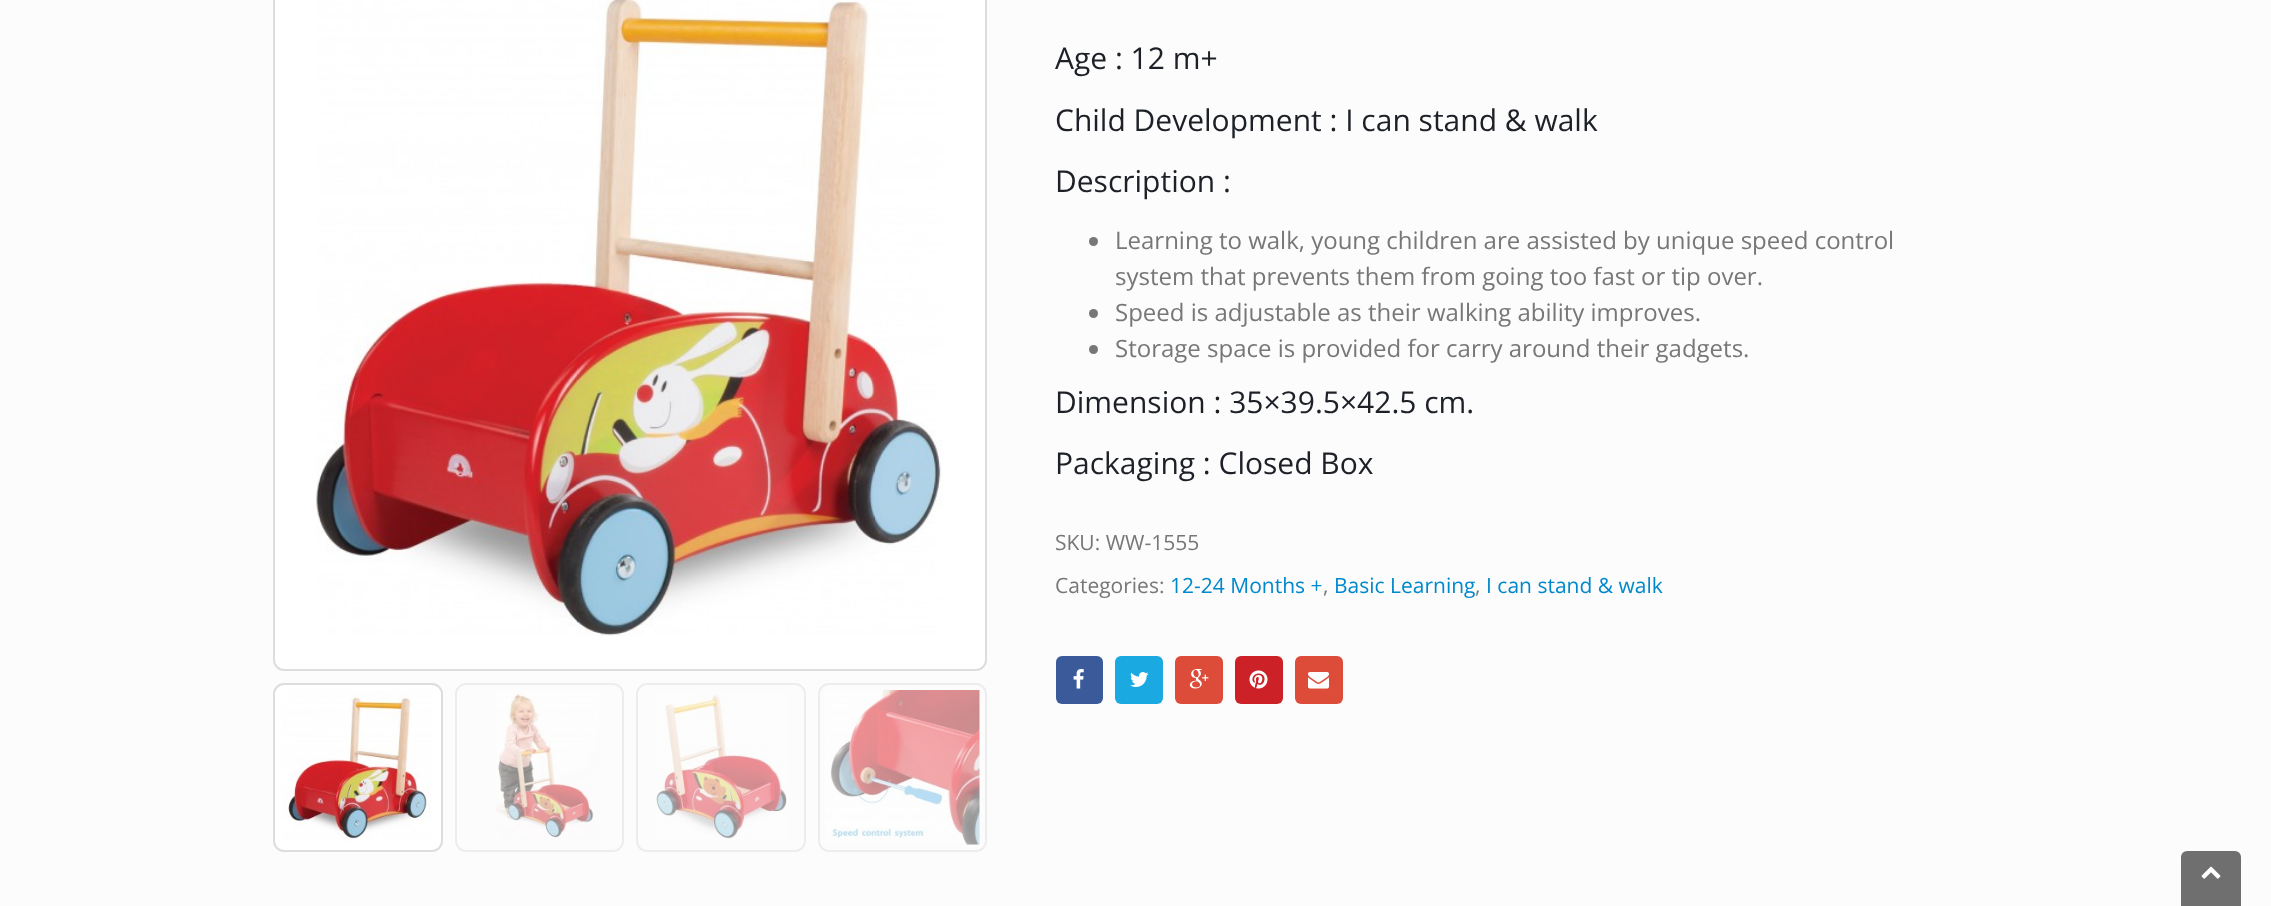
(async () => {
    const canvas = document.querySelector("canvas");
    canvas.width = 2271;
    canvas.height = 906;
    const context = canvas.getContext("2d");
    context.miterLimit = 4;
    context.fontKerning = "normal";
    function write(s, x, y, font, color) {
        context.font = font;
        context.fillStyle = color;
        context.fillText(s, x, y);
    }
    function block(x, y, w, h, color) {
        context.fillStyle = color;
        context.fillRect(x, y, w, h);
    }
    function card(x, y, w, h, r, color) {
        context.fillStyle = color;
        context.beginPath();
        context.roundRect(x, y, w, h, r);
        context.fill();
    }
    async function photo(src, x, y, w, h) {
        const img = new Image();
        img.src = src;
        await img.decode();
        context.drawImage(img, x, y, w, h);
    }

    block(0, 0, 2271, 906, "rgb(252, 252, 252)");
    context.fillStyle = "rgb(255, 255, 255)";
    context.beginPath();
    context.roundRect(274, -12, 712, 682, 10);
    context.fill();
    context.strokeStyle = "rgb(221, 221, 221)";
    context.lineWidth = 2;
    context.stroke();
    await photo("media/1.png", 316, 0, 627, 636);
    context.beginPath();
    context.roundRect(274, 684, 168, 167, 10);
    context.fill();
    context.stroke();
    await photo("media/2.png", 282, 690, 150, 151);
    context.beginPath();
    context.roundRect(456, 684, 167, 167, 10);
    context.strokeStyle = "rgb(237, 237, 237)";
    context.stroke();
    await photo("media/3.png", 495, 690, 104, 151);
    context.beginPath();
    context.roundRect(637, 684, 168, 167, 10);
    context.stroke();
    await photo("media/4.png", 656, 694, 132, 145);
    context.beginPath();
    context.roundRect(819, 684, 167, 167, 10);
    context.stroke();
    await photo("media/5.png", 825, 690, 155, 155);
    write("Age : 12 m+", 1055, 69, "30px Open Sans", "rgb(29, 33, 39)");
    write("Child Development : I can stand & walk", 1055, 131, "30px Open Sans", "rgb(29, 33, 39)");
    write("Description :", 1055, 192, "30px Open Sans", "rgb(29, 33, 39)");
    context.fillStyle = "rgb(119, 119, 119)";
    context.beginPath();
    context.arc(1093.5, 241.5, 4.5, 0, Math.PI * 2);
    context.fill();
    write("Learning to walk, young children are assisted by unique speed control", 1115, 249, "24px Open Sans", "rgb(119, 119, 119)");
    write("system that prevents them from going too fast or tip over.", 1115, 285, "24px Open Sans", "rgb(119, 119, 119)");
    context.beginPath();
    context.arc(1093.5, 313.5, 4.5, 0, Math.PI * 2);
    context.fill();
    write("Speed is adjustable as their walking ability improves.", 1115, 321, "24px Open Sans", "rgb(119, 119, 119)");
    context.beginPath();
    context.arc(1093.5, 349.5, 4.5, 0, Math.PI * 2);
    context.fill();
    write("Storage space is provided for carry around their gadgets.", 1115, 357, "24px Open Sans", "rgb(119, 119, 119)");
    write("Dimension : 35×39.5×42.5 cm.", 1055, 413, "30px Open Sans", "rgb(29, 33, 39)");
    write("Packaging : Closed Box", 1055, 474, "30px Open Sans", "rgb(29, 33, 39)");
    write("SKU: WW-1555", 1055, 550, "21px Open Sans", "rgb(119, 119, 119)");
    write("Categories:", 1055, 593, "21px Open Sans", "rgb(119, 119, 119)");
    write("12-24 Months +", 1170, 593, "21px Open Sans", "rgb(0, 136, 204)");
    write(",", 1323, 593, "21px Open Sans", "rgb(119, 119, 119)");
    write("Basic Learning", 1334, 593, "21px Open Sans", "rgb(0, 136, 204)");
    write(",", 1475, 593, "21px Open Sans", "rgb(119, 119, 119)");
    write("I can stand & walk", 1486, 593, "21px Open Sans", "rgb(0, 136, 204)");
    card(1056, 656, 47, 48, 6, "rgb(59, 90, 154)");
    await photo("media/6.png", 1073, 669, 11, 20);
    card(1115, 656, 48, 48, 6, "rgb(26, 169, 225)");
    await photo("media/7.png", 1130, 672, 19, 15);
    card(1175, 656, 48, 48, 6, "rgb(221, 75, 57)");
    await photo("media/8.png", 1189, 669, 20, 20);
    card(1235, 656, 48, 48, 6, "rgb(204, 33, 39)");
    await photo("media/9.png", 1249, 670, 19, 19);
    card(1295, 656, 48, 48, 6, "rgb(221, 75, 57)");
    await photo("media/10.png", 1308, 672, 21, 17);
    context.fillStyle = "rgb(111, 111, 111)";
    context.beginPath();
    context.roundRect(2181, 851, 60, 55, [6, 6, 0, 0]);
    context.fill();
    await photo("media/11.png", 2201, 866, 20, 13);
})();
